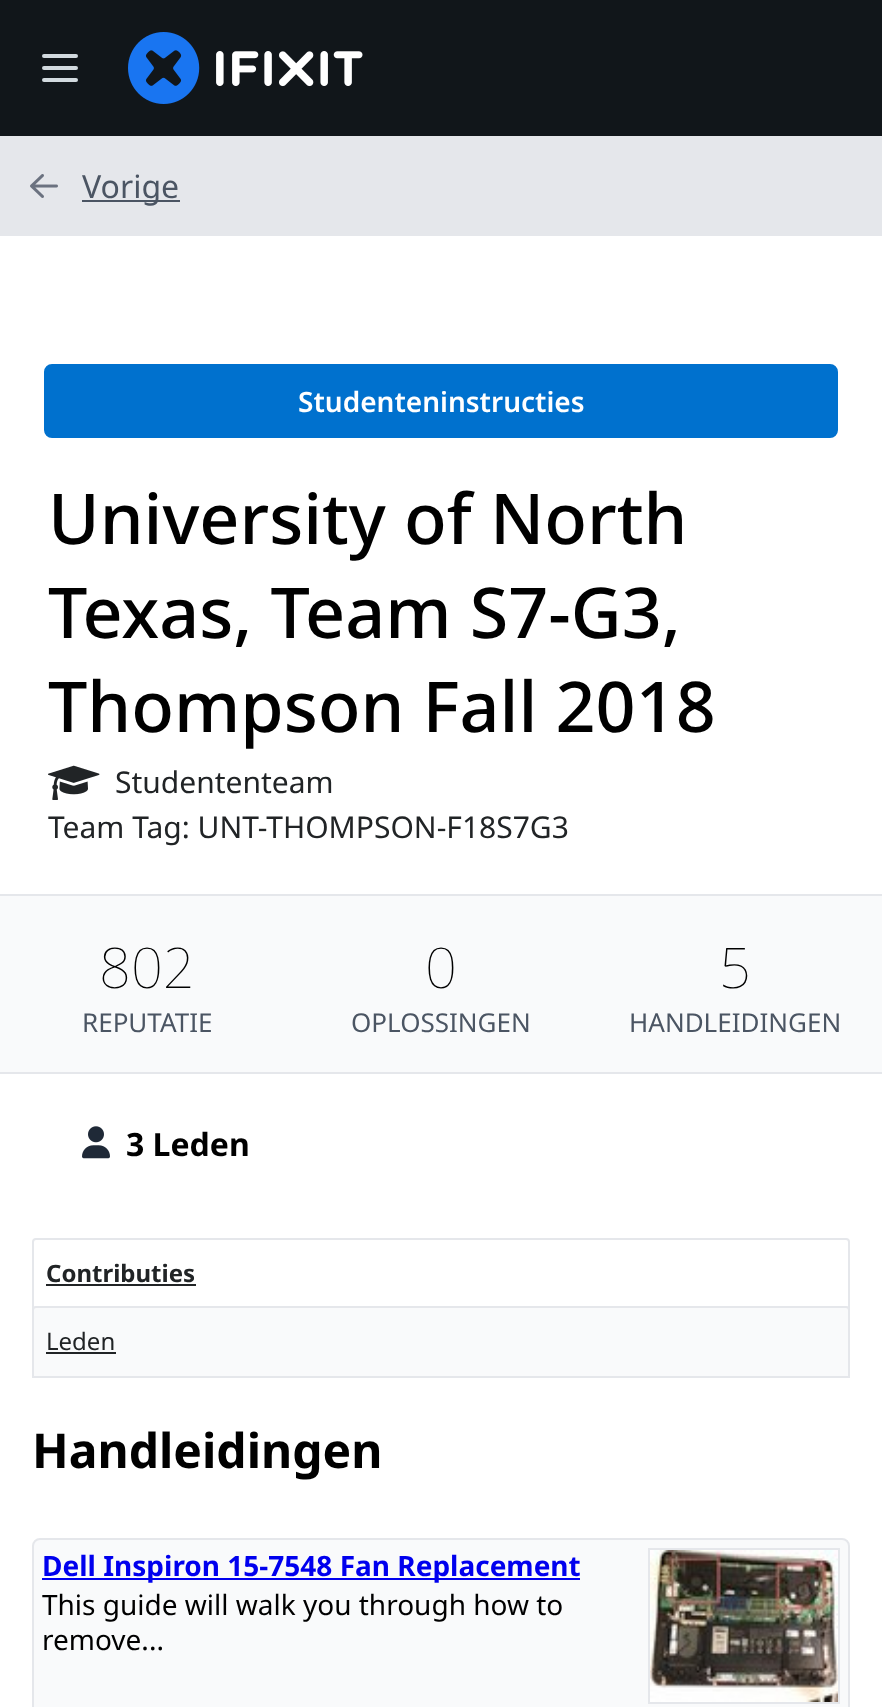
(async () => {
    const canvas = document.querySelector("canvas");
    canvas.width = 882;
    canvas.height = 1707;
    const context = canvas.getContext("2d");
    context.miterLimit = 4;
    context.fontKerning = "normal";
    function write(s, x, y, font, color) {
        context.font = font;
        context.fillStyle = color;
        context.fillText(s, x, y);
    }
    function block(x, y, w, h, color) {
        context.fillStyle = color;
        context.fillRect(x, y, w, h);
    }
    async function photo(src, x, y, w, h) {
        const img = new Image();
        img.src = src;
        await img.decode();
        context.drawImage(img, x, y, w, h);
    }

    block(0, 0, 882, 1707, "rgb(255, 255, 255)");
    block(0, 0, 882, 136, "rgb(17, 22, 26)");
    context.beginPath();
    context.moveTo(44, 68);
    context.lineTo(76, 68);
    context.moveTo(44, 56);
    context.lineTo(76, 56);
    context.moveTo(44, 80);
    context.lineTo(76, 80);
    context.strokeStyle = "rgb(210, 218, 223)";
    context.lineWidth = 4;
    context.lineCap = "round";
    context.lineJoin = "round";
    context.stroke();
    await photo("media/1.png", 128, 32, 235, 72);
    block(0, 136, 882, 100, "rgb(229, 231, 235)");
    await photo("media/2.png", 30, 174, 28, 24);
    block(82, 200, 98, 2, "rgb(75, 85, 99)");
    write("Vorige", 82, 198, "32px Noto Sans", "rgb(75, 85, 99)");
    context.fillStyle = "rgb(0, 113, 206)";
    context.beginPath();
    context.roundRect(45, 365, 792, 72, 7);
    context.fill();
    context.strokeStyle = "rgb(0, 113, 206)";
    context.lineWidth = 2;
    context.lineJoin = "miter";
    context.stroke();
    write("Studenteninstructies", 298, 412, "600 28px Noto Sans", "rgb(255, 255, 255)");
    write("University of North", 48, 544, "500 70px Noto Sans", "rgb(0, 0, 0)");
    write("Texas, Team S7-G3,", 48, 638, "500 70px Noto Sans", "rgb(0, 0, 0)");
    write("Thompson Fall 2018", 48, 732, "500 70px Noto Sans", "rgb(0, 0, 0)");
    await photo("media/3.png", 48, 765, 52, 35);
    write("Studententeam", 115, 793, "30px Noto Sans", "rgb(33, 36, 38)");
    write("Team Tag: UNT-THOMPSON-F18S7G3", 48, 838, "30px Noto Sans", "rgb(33, 36, 38)");
    block(0, 896, 882, 176, "rgb(249, 250, 251)");
    block(0, 894, 882, 2, "rgb(229, 231, 235)");
    block(0, 1072, 882, 2, "rgb(229, 231, 235)");
    write("802", 99, 988, "100 56px Noto Sans", "rgb(0, 0, 0)");
    write("REPUTATIE", 82, 1032, "26px Noto Sans", "rgb(75, 85, 99)");
    write("0", 425, 988, "100 56px Noto Sans", "rgb(0, 0, 0)");
    write("OPLOSSINGEN", 351, 1032, "26px Noto Sans", "rgb(75, 85, 99)");
    write("5", 719, 988, "100 56px Noto Sans", "rgb(0, 0, 0)");
    write("HANDLEIDINGEN", 629, 1032, "26px Noto Sans", "rgb(75, 85, 99)");
    await photo("media/4.png", 82, 1126, 28, 33);
    write("3 Leden", 126, 1156, "bold 32px Noto Sans", "rgb(0, 0, 0)");
    context.beginPath();
    context.roundRect(33, 1239, 816, 70, [3, 3, 0, 0]);
    context.strokeStyle = "rgb(229, 231, 235)";
    context.stroke();
    write("Contributies", 46, 1282, "bold 24px Noto Sans", "rgb(33, 36, 38)");
    block(46, 1284, 150, 2, "rgb(33, 36, 38)");
    context.fillStyle = "rgb(249, 250, 251)";
    context.beginPath();
    context.roundRect(33, 1307, 816, 70, [3, 3, 0, 0]);
    context.fill();
    context.stroke();
    write("Leden", 46, 1350, "24px Noto Sans", "rgb(33, 36, 38)");
    block(46, 1352, 70, 2, "rgb(33, 36, 38)");
    write("Handleidingen", 32, 1468, "bold 48px Noto Sans", "rgb(0, 0, 0)");
    context.fillStyle = "rgb(249, 250, 251)";
    context.beginPath();
    context.roundRect(33, 1539, 816, 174, 7);
    context.fill();
    context.stroke();
    block(42, 1578, 538, 2, "rgb(0, 0, 238)");
    write("Dell Inspiron 15-7548 Fan Replacement", 42, 1576, "bold 28px Noto Sans", "rgb(0, 0, 238)");
    write("This guide will walk you through how to", 42, 1615, "28px Noto Sans", "rgb(0, 0, 0)");
    write("remove...", 42, 1650, "28px Noto Sans", "rgb(0, 0, 0)");
    context.strokeRect(649, 1549, 190, 154);
    await photo("media/5.png", 650, 1550, 188, 152);
})();
